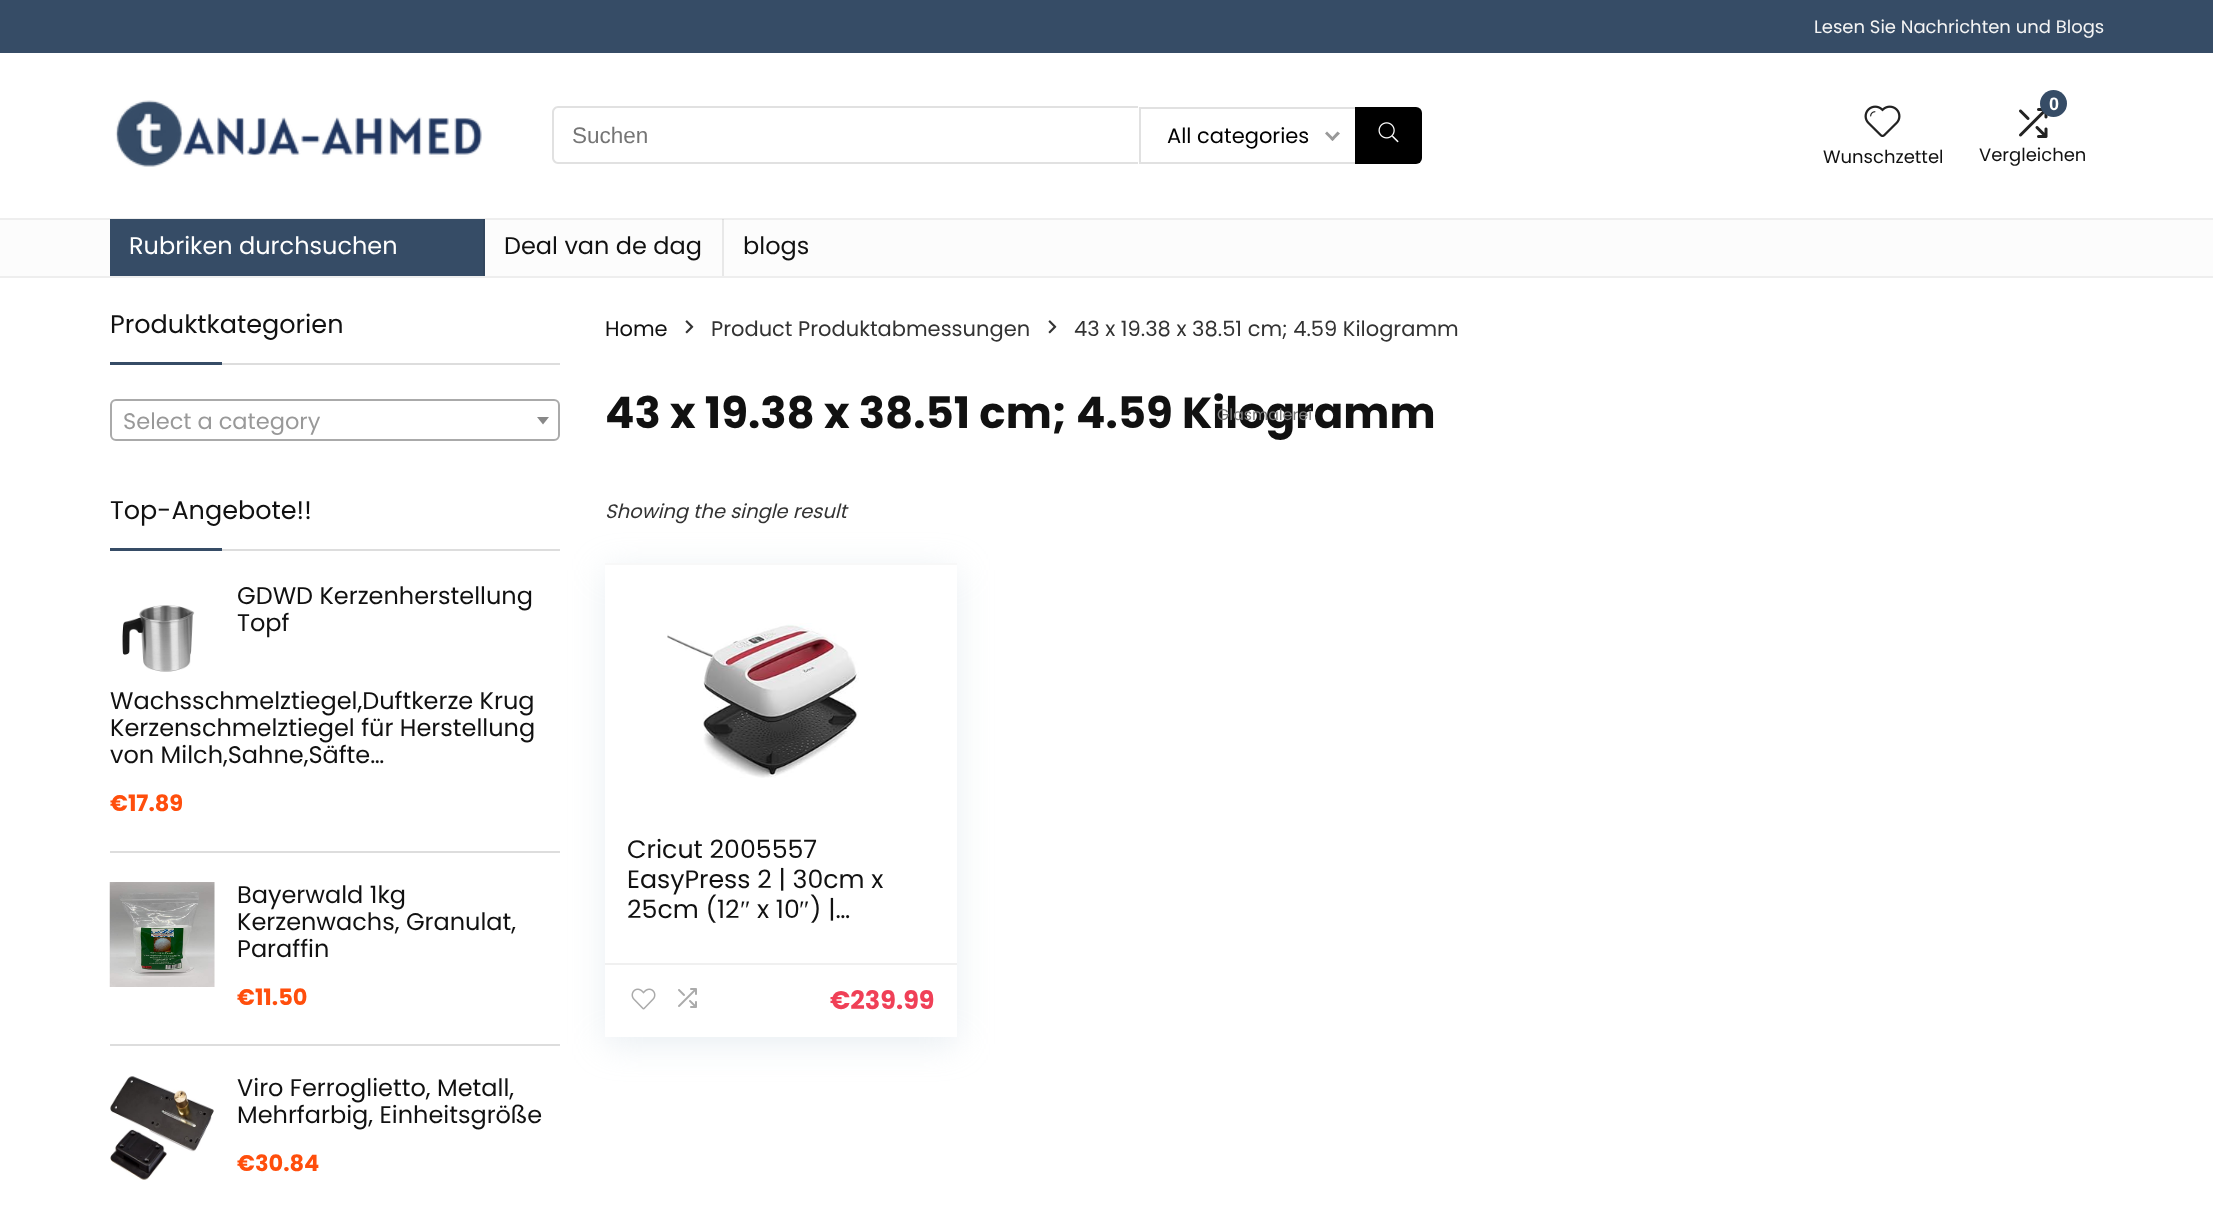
(async () => {
    const canvas = document.querySelector("canvas");
    canvas.width = 2213;
    canvas.height = 1212;
    const context = canvas.getContext("2d");
    context.miterLimit = 4;
    context.fontKerning = "normal";
    function write(s, x, y, font, color) {
        context.font = font;
        context.fillStyle = color;
        context.fillText(s, x, y);
    }
    function block(x, y, w, h, color) {
        context.fillStyle = color;
        context.fillRect(x, y, w, h);
    }
    async function photo(src, x, y, w, h) {
        const img = new Image();
        img.src = src;
        await img.decode();
        context.drawImage(img, x, y, w, h);
    }

    block(0, 0, 2213, 1212, "rgb(255, 255, 255)");
    block(0, 0, 2213, 53, "rgb(54, 76, 102)");
    write("Lesen Sie Nachrichten und Blogs", 1814, 33, "18px Poppins", "rgb(244, 244, 244)");
    block(0, 220, 2213, 56, "rgb(252, 252, 252)");
    block(722, 219, 2, 57, "rgb(232, 232, 232)");
    block(0, 218, 2213, 2, "rgb(238, 238, 238)");
    block(722, 219, 2, 1, "rgb(219, 219, 219)");
    block(0, 276, 2213, 2, "rgb(238, 238, 238)");
    block(110, 219, 373, 57, "rgb(54, 76, 102)");
    block(483, 219, 2, 57, "rgb(50, 70, 94)");
    write("Rubriken durchsuchen", 129, 254, "24px Poppins", "rgb(255, 255, 255)");
    write("Deal van de dag", 504, 254, "24px Poppins", "rgb(17, 17, 17)");
    write("blogs", 743, 254, "24px Poppins", "rgb(17, 17, 17)");
    await photo("media/1.png", 115, 100, 367, 67);
    context.fillStyle = "rgb(225, 225, 225)";
    context.beginPath();
    context.moveTo(558, 106);
    context.lineTo(1138, 106);
    context.lineTo(1138, 164);
    context.lineTo(558, 164);
    context.bezierCurveTo(555, 164, 552, 161, 552, 158);
    context.lineTo(552, 112);
    context.bezierCurveTo(552, 109, 555, 106, 558, 106);
    context.closePath();
    context.moveTo(558, 108);
    context.lineTo(1138, 108);
    context.lineTo(1138, 162);
    context.lineTo(558, 162);
    context.bezierCurveTo(556, 162, 554, 160, 554, 158);
    context.lineTo(554, 112);
    context.bezierCurveTo(554, 110, 556, 108, 558, 108);
    context.closePath();
    context.fill("evenodd");
    write("Suchen", 572, 143, "22.5px Liberation Sans", "rgb(117, 117, 117)");
    block(1139, 107, 216, 2, "rgb(225, 225, 225)");
    block(1139, 162, 216, 2, "rgb(225, 225, 225)");
    block(1139, 107, 2, 57, "rgb(225, 225, 225)");
    write("All categories", 1167, 143, "21px Poppins", "rgb(0, 0, 0)");
    context.fillStyle = "rgb(153, 153, 153)";
    context.beginPath();
    context.moveTo(1337.5, 131.5);
    context.lineTo(1340, 133.5);
    context.lineTo(1332.5, 141);
    context.lineTo(1330.5, 139);
    context.closePath();
    context.fill();
    context.beginPath();
    context.moveTo(1327, 131.5);
    context.lineTo(1334.5, 139);
    context.lineTo(1332.5, 141);
    context.lineTo(1325, 133.5);
    context.closePath();
    context.fill();
    write("43 x 19.38 x 38.51 cm; 4.59 Kilogramm", 605, 428, "bold 43.5px Poppins", "rgb(17, 17, 17)");
    write("Glasmalerei", 1217, 420, "15.75px Poppins", "rgb(124, 124, 124)");
    context.fillStyle = "rgb(0, 0, 0)";
    context.beginPath();
    context.roundRect(1355, 107, 67, 57, [0, 6, 6, 0]);
    context.fill();
    await photo("media/2.png", 1378, 122, 21, 21);
    await photo("media/3.png", 1864, 105, 37, 32);
    write("Wunschzettel", 1823, 163, "18px Poppins", "rgb(17, 17, 17)");
    await photo("media/4.png", 2019, 108, 29, 30);
    context.fillStyle = "rgb(54, 76, 102)";
    context.beginPath();
    context.arc(2053.5, 103.5, 13.5, 0, Math.PI * 2);
    context.fill();
    write("0", 2049, 110, "bold 18px Liberation Sans", "rgb(255, 255, 255)");
    write("Vergleichen", 1979, 161, "18px Poppins", "rgb(17, 17, 17)");
    block(222, 363, 338, 2, "rgb(221, 221, 221)");
    write("Produktkategorien", 110, 333, "25.5px Poppins", "rgb(17, 17, 17)");
    block(110, 362, 112, 3, "rgb(54, 76, 102)");
    context.beginPath();
    context.roundRect(111, 400, 448, 40, 5);
    context.strokeStyle = "rgb(170, 170, 170)";
    context.lineWidth = 2;
    context.stroke();
    write("Select a category", 123, 429, "22.5px Poppins", "rgb(153, 153, 153)");
    context.fillStyle = "rgb(136, 136, 136)";
    context.beginPath();
    context.moveTo(537, 417);
    context.lineTo(549, 417);
    context.lineTo(543, 424.5);
    context.closePath();
    context.fill();
    block(222, 549, 338, 2, "rgb(221, 221, 221)");
    write("Top-Angebote!!", 110, 519, "25.5px Poppins", "rgb(17, 17, 17)");
    block(110, 548, 112, 3, "rgb(54, 76, 102)");
    block(110, 851, 450, 2, "rgb(221, 221, 221)");
    write("GDWD Kerzenherstellung", 237, 604, "24px Poppins", "rgb(17, 17, 17)");
    await photo("media/5.png", 122, 605, 73, 67);
    write("Topf", 237, 631, "24px Poppins", "rgb(17, 17, 17)");
    write("Wachsschmelztiegel,Duftkerze Krug", 110, 709, "24px Poppins", "rgb(17, 17, 17)");
    write("Kerzenschmelztiegel für Herstellung", 110, 736, "24px Poppins", "rgb(17, 17, 17)");
    write("von Milch,Sahne,Säfte…", 110, 763, "24px Poppins", "rgb(17, 17, 17)");
    write("€17.89", 110, 811, "bold 22.5px Poppins", "rgb(255, 78, 12)");
    block(110, 1044, 450, 2, "rgb(221, 221, 221)");
    await photo("media/6.png", 109, 882, 106, 105);
    write("Bayerwald 1kg", 237, 903, "24px Poppins", "rgb(17, 17, 17)");
    write("Kerzenwachs, Granulat,", 237, 930, "24px Poppins", "rgb(17, 17, 17)");
    write("Paraffin", 237, 957, "24px Poppins", "rgb(17, 17, 17)");
    write("€11.50", 237, 1005, "bold 22.5px Poppins", "rgb(255, 78, 12)");
    await photo("media/7.png", 110, 1076, 104, 104);
    write("Viro Ferroglietto, Metall,", 237, 1096, "24px Poppins", "rgb(17, 17, 17)");
    write("Mehrfarbig, Einheitsgröße", 237, 1123, "24px Poppins", "rgb(17, 17, 17)");
    write("€30.84", 237, 1171, "bold 22.5px Poppins", "rgb(255, 78, 12)");
    write("Home", 605, 336, "21px Poppins", "rgb(17, 17, 17)");
    await photo("media/8.png", 685, 320, 9, 14);
    write("Product Produktabmessungen", 711, 336, "21px Poppins", "rgb(51, 51, 51)");
    await photo("media/8.png", 1048, 320, 9, 14);
    write("43 x 19.38 x 38.51 cm; 4.59 Kilogramm", 1074, 336, "21px Poppins", "rgb(51, 51, 51)");
    write("Showing the single result", 605, 518, "italic 19.5px Poppins", "rgb(51, 51, 51)");
    context.fillStyle = "rgba(188, 207, 219, 0.35)";
    context.filter = "blur(17px)";
    context.beginPath();
    context.rect(605, 570, 352, 474);
    context.fill();
    context.filter = "none";
    block(605, 565, 352, 472, "rgb(255, 255, 255)");
    block(605, 563, 352, 2, "rgb(248, 248, 248)");
    await photo("media/9.png", 667, 623, 192, 155);
    write("Cricut 2005557", 627, 858, "25.25px Poppins", "rgb(17, 17, 17)");
    write("EasyPress 2 | 30cm x", 627, 888, "25.25px Poppins", "rgb(17, 17, 17)");
    write("25cm (12", 627, 918, "25.25px Poppins", "rgb(17, 17, 17)");
    write("″", 740, 918, "25.25px Liberation Serif", "rgb(17, 17, 17)");
    write("x 10", 757, 918, "25.25px Poppins", "rgb(17, 17, 17)");
    write("″", 799, 918, "25.25px Liberation Serif", "rgb(17, 17, 17)");
    write(") |…", 810, 918, "25.25px Poppins", "rgb(17, 17, 17)");
    block(605, 963, 352, 2, "rgb(240, 240, 240)");
    await photo("media/10.png", 631, 988, 25, 22);
    await photo("media/11.png", 678, 988, 19, 20);
    write("€239.99", 830, 1009, "bold 25.5px Poppins", "rgb(240, 64, 87)");
})();
